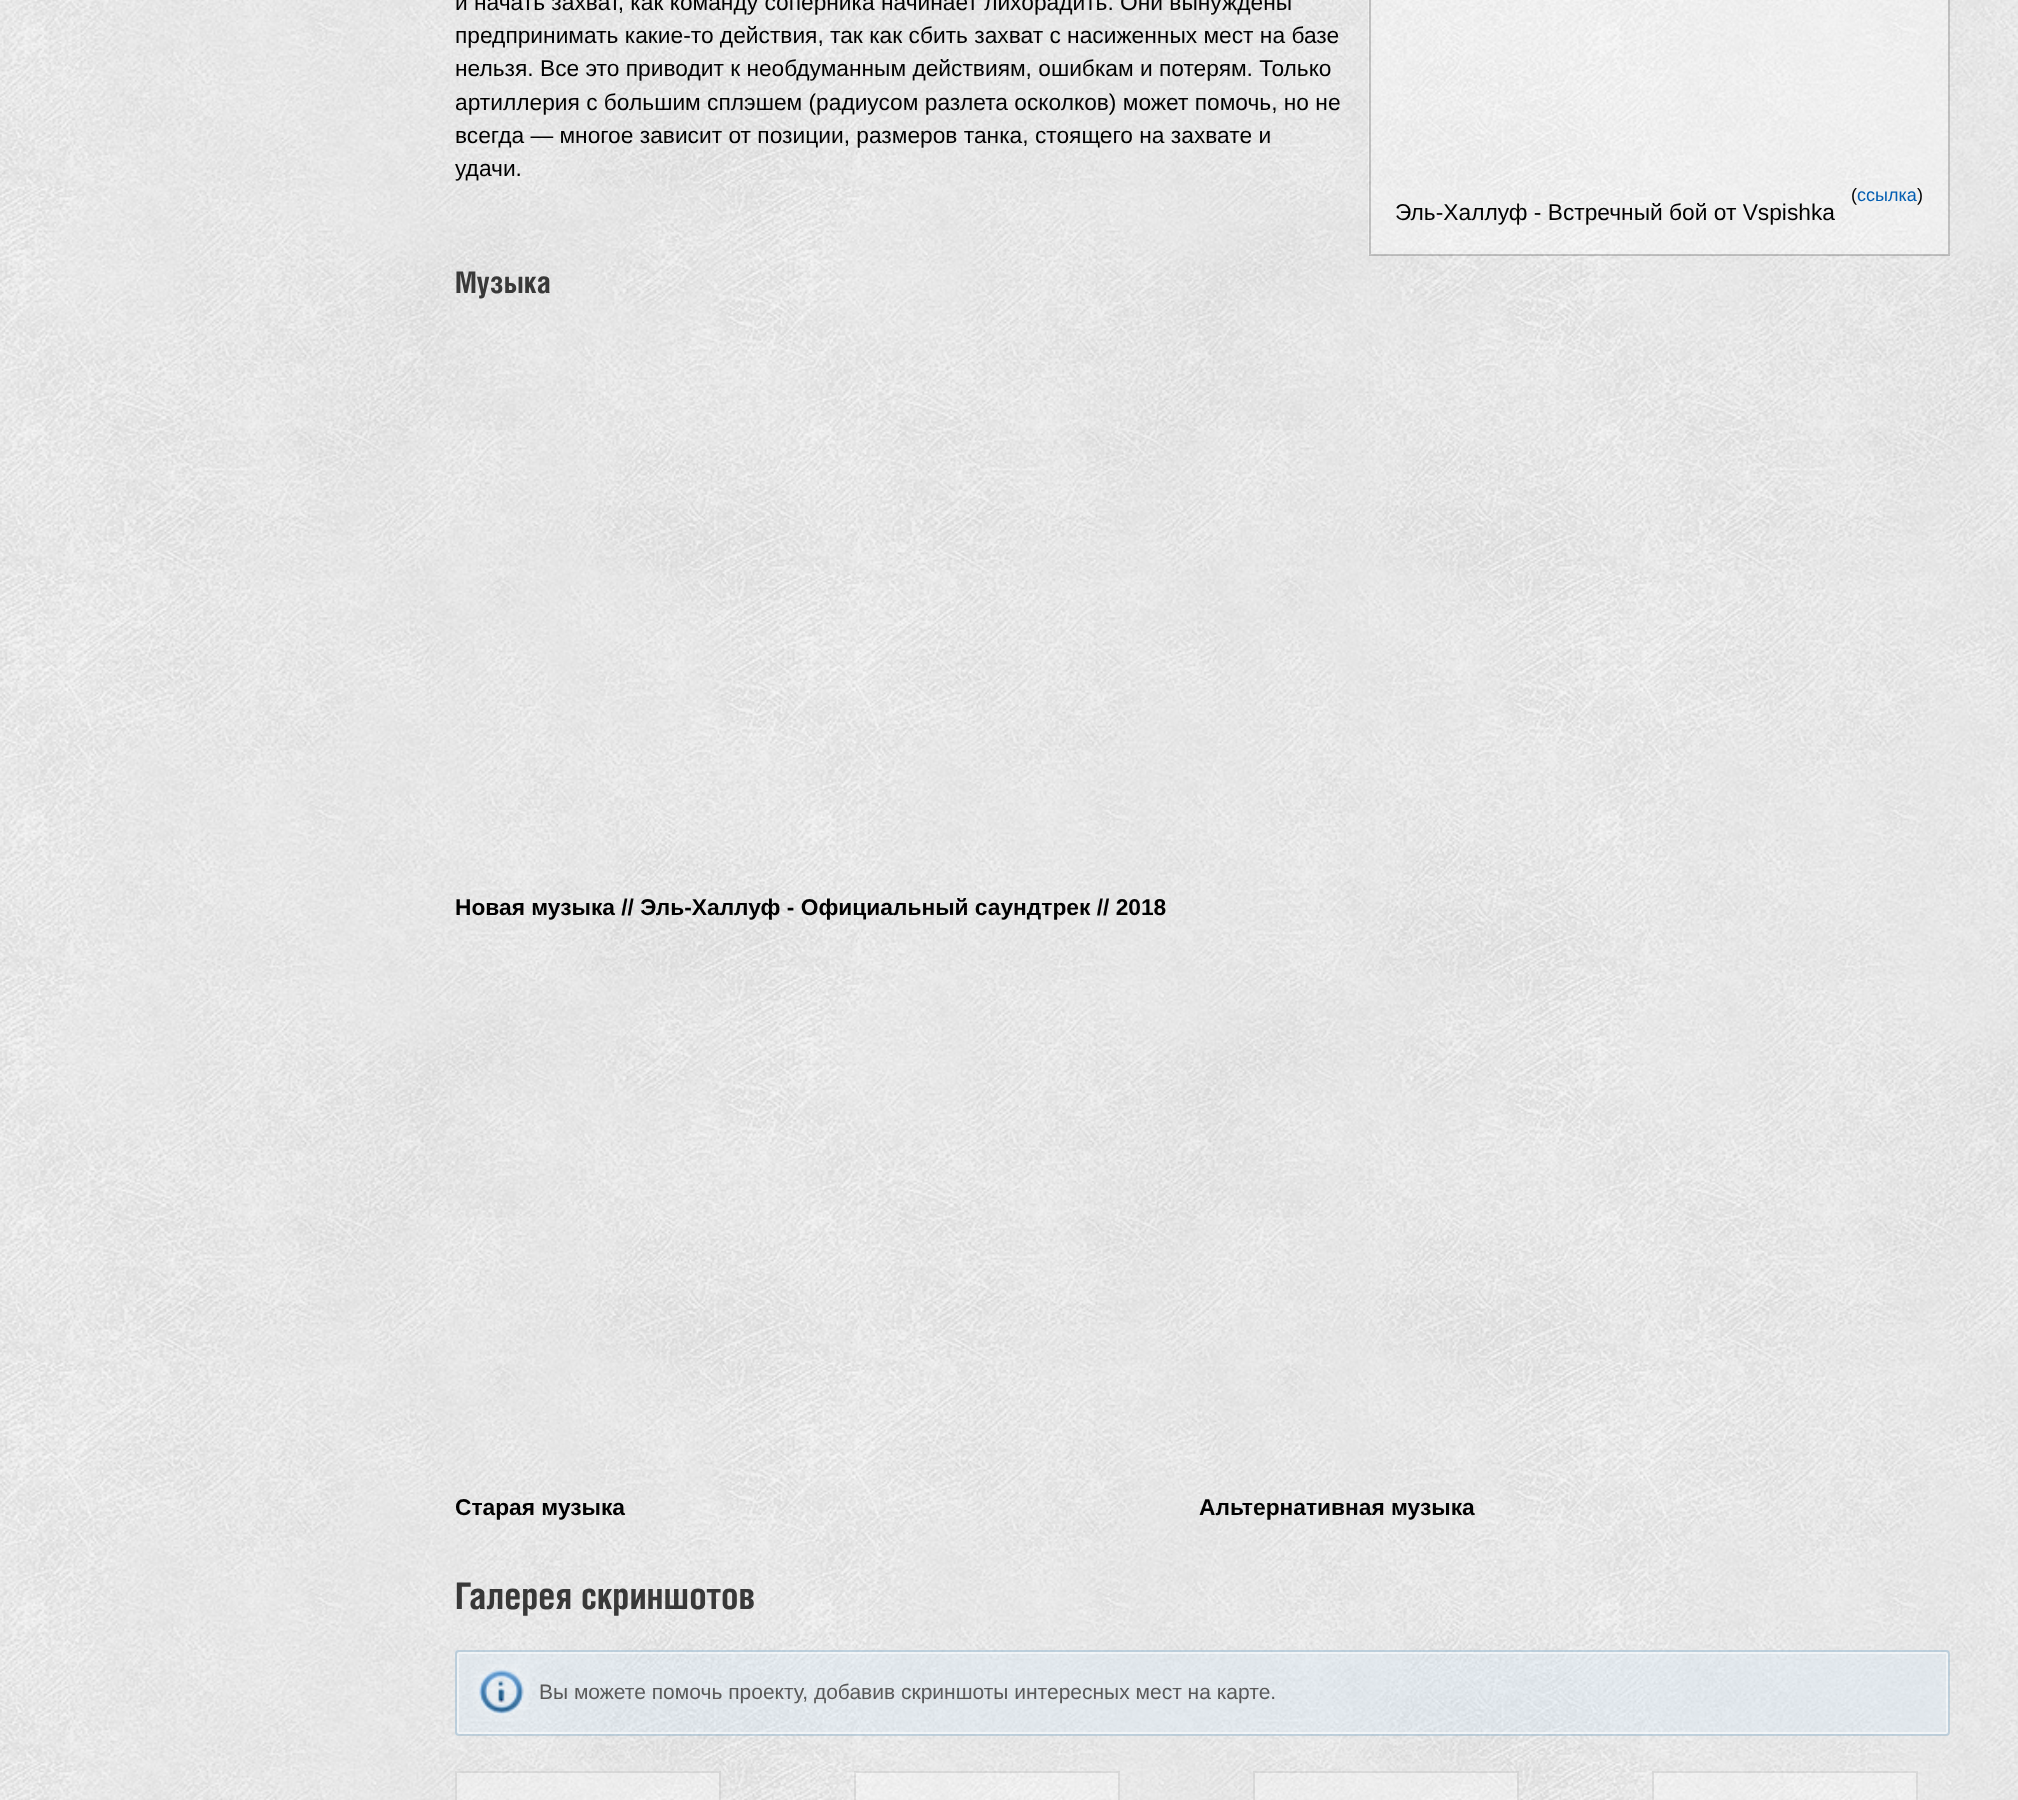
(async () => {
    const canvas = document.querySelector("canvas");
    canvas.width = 2018;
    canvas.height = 1800;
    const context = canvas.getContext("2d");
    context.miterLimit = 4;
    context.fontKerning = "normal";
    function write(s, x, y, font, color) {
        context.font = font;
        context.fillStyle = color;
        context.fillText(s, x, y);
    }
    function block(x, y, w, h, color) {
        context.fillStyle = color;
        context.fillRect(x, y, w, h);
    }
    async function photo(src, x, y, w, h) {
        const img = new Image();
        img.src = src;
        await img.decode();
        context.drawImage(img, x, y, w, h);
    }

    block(0, 0, 2018, 1800, "rgb(255, 255, 255)");
    await photo("media/1.png", 0, 0, 2018, 1800);
    write("и начать захват, как команду соперника начинает лихорадить. Они вынуждены", 455, 10, "22.75px Liberation Sans", "rgb(0, 0, 0)");
    write("предпринимать какие-то действия, так как сбить захват с насиженных мест на базе", 455, 43, "22.75px Liberation Sans", "rgb(0, 0, 0)");
    write("нельзя. Все это приводит к необдуманным действиям, ошибкам и потерям. Только", 455, 76, "22.75px Liberation Sans", "rgb(0, 0, 0)");
    write("артиллерия с большим сплэшем (радиусом разлета осколков) может помочь, но не", 455, 110, "22.75px Liberation Sans", "rgb(0, 0, 0)");
    write("всегда — многое зависит от позиции, размеров танка, стоящего на захвате и", 455, 143, "22.75px Liberation Sans", "rgb(0, 0, 0)");
    write("удачи.", 455, 176, "22.75px Liberation Sans", "rgb(0, 0, 0)");
    block(1368, 0, 582, 255, "rgba(255, 255, 255, 0.34)");
    context.strokeStyle = "rgba(0, 0, 0, 0.2)";
    context.lineWidth = 2;
    context.strokeRect(1370, -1, 579, 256);
    write("(", 1851, 201, "18px Liberation Sans", "rgb(0, 0, 0)");
    write("ссылка", 1857, 201, "18px Liberation Sans", "rgb(2, 93, 177)");
    write(")", 1917, 201, "18px Liberation Sans", "rgb(0, 0, 0)");
    write("Эль-Халлуф - Встречный бой от Vspishka", 1395, 220, "22.75px Liberation Sans", "rgb(0, 0, 0)");
    write("Музыка", 455, 293, "bold 31.5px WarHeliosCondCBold", "rgb(56, 56, 56)");
    write("Новая музыка // Эль-Халлуф - Официальный саундтрек // 2018", 455, 915, "bold 22.75px Liberation Sans", "rgb(0, 0, 0)");
    write("Старая музыка", 455, 1515, "bold 22.75px Liberation Sans", "rgb(0, 0, 0)");
    write("Альтернативная музыка", 1199, 1515, "bold 22.75px Liberation Sans", "rgb(0, 0, 0)");
    write("Галерея скриншотов", 455, 1609, "bold 38.5px WarHeliosCondCBold", "rgb(56, 56, 56)");
    block(455, 1650, 1494, 85, "rgba(215, 232, 246, 0.35)");
    context.beginPath();
    context.roundRect(458, 1653, 1489, 80, 1);
    context.strokeStyle = "rgba(255, 255, 255, 0.5)";
    context.stroke();
    context.beginPath();
    context.roundRect(456, 1651, 1493, 84, 3);
    context.strokeStyle = "rgba(121, 164, 190, 0.37)";
    context.stroke();
    await photo("media/2.png", 473, 1664, 57, 56);
    write("Вы можете помочь проекту, добавив скриншоты интересных мест на карте.", 539, 1699, "21px Liberation Sans", "rgb(89, 89, 89)");
    block(455, 1771, 266, 29, "rgba(255, 255, 255, 0.3)");
    context.strokeStyle = "rgba(0, 0, 0, 0.09)";
    context.strokeRect(456, 1772, 264, 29);
    block(854, 1771, 266, 29, "rgba(255, 255, 255, 0.3)");
    context.strokeRect(855, 1772, 264, 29);
    block(1253, 1771, 266, 29, "rgba(255, 255, 255, 0.3)");
    context.strokeRect(1254, 1772, 264, 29);
    block(1652, 1771, 266, 29, "rgba(255, 255, 255, 0.3)");
    context.strokeRect(1653, 1772, 264, 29);
})();
